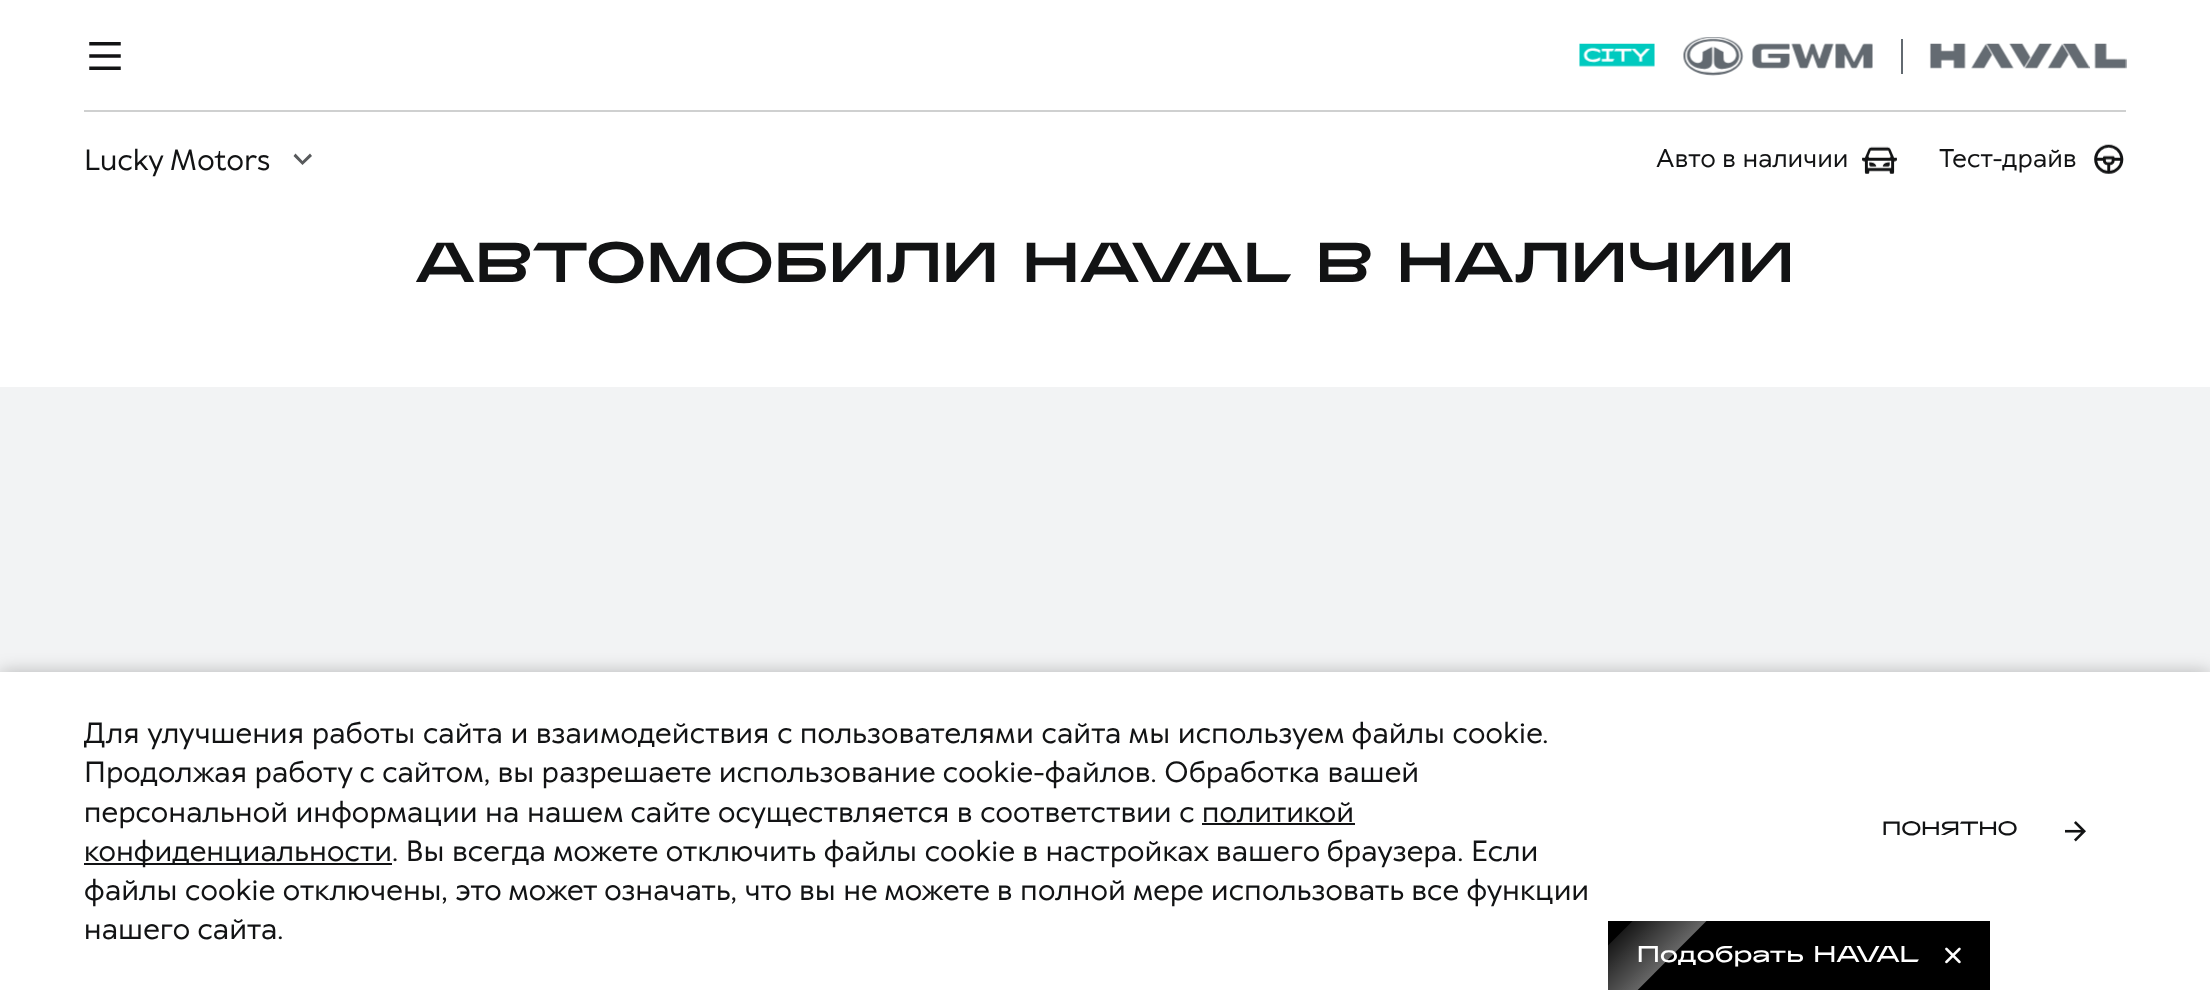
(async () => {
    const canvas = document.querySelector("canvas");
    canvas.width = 2210;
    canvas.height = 990;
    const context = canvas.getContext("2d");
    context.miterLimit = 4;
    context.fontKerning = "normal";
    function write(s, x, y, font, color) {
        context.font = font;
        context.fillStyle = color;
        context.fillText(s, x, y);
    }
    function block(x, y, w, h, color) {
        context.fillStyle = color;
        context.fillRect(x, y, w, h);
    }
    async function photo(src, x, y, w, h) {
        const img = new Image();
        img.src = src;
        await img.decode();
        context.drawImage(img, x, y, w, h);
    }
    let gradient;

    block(0, 0, 2210, 990, "rgb(255, 255, 255)");
    await photo("media/1.png", 89, 42, 32, 28);
    await photo("media/2.png", 1579, 43, 76, 24);
    await photo("media/3.png", 1683, 37, 190, 39);
    block(1901, 39, 2, 35, "rgb(98, 105, 112)");
    await photo("media/4.png", 1929, 43, 198, 26);
    block(84, 110, 2042, 2, "rgb(207, 208, 208)");
    context.letterSpacing = "0.35px";
    write("Lucky Motors", 84, 170, "500 28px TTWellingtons", "rgb(18, 19, 20)");
    context.fillStyle = "rgb(88, 90, 92)";
    context.beginPath();
    context.moveTo(302.5, 161);
    context.lineTo(310, 153.5);
    context.lineTo(312, 156);
    context.lineTo(302.5, 165);
    context.lineTo(293.5, 156);
    context.lineTo(295.5, 153.5);
    context.closePath();
    context.fill();
    write("Авто в наличии", 1656, 167, "500 24.5px TTWellingtons", "rgb(18, 19, 20)");
    await photo("media/5.png", 1862, 146, 35, 28);
    write("Тест-драйв", 1939, 167, "500 24.5px TTWellingtons", "rgb(18, 19, 20)");
    await photo("media/6.png", 2094, 144, 30, 30);
    context.letterSpacing = "-0.1px";
    write("АВТОМОБИЛИ HAVAL В НАЛИЧИИ", 415, 282, "500 56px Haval", "rgb(18, 19, 20)");
    block(0, 387, 2210, 285, "rgb(242, 243, 244)");
    context.fillStyle = "rgba(0, 0, 0, 0.25)";
    context.filter = "blur(9px)";
    context.beginPath();
    context.rect(0, 672, 2210, 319);
    context.fill();
    context.filter = "none";
    block(0, 672, 2210, 318, "rgb(255, 255, 255)");
    context.letterSpacing = "0.35px";
    write("Для улучшения работы сайта и взаимодействия с пользователями сайта мы", 84, 743, "500 28px TTWellingtons", "rgb(18, 19, 20)");
    write("используем файлы cookie.", 1178, 743, "500 28px TTWellingtons", "rgb(18, 19, 20)");
    write("Продолжая работу с сайтом, вы разрешаете", 84, 782, "500 28px TTWellingtons", "rgb(18, 19, 20)");
    write("использование cookie-файлов. Обработка вашей", 719, 782, "500 28px TTWellingtons", "rgb(18, 19, 20)");
    write("персональной информации на нашем сайте осуществляется в соответствии с политикой", 84, 822, "500 28px TTWellingtons", "rgb(18, 19, 20)");
    block(84, 863, 308, 2, "rgb(18, 19, 20)");
    write("конфиденциальности. Вы всегда можете отключить файлы cookie в настройках вашего браузера. Если", 84, 861, "500 28px TTWellingtons", "rgb(18, 19, 20)");
    block(1202, 823, 153, 2, "rgb(18, 19, 20)");
    write("файлы cookie отключены, это может означать, что вы не можете в полной мере использовать все функции", 84, 900, "500 28px TTWellingtons", "rgb(18, 19, 20)");
    write("нашего сайта.", 84, 939, "500 28px TTWellingtons", "rgb(18, 19, 20)");
    context.letterSpacing = "0px";
    write("ПОНЯТНО", 1882, 835, "19.25px Haval", "rgb(18, 19, 20)");
    await photo("media/7.png", 2065, 821, 21, 21);
    block(1608, 921, 382, 69, "rgb(0, 0, 0)");
    write("Подобрать HAVAL", 1637, 962, "22.75px 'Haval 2'", "rgb(255, 255, 255)");
    context.save();
    context.beginPath();
    context.rect(1608, 921, 382, 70);
    context.clip();
    gradient = context.createLinearGradient(1652, 902, 1689, 939);
    gradient.addColorStop(0, "rgba(255, 255, 255, 0.1)");
    gradient.addColorStop(1, "rgba(255, 255, 255, 0.4)");
    context.fillStyle = gradient;
    context.beginPath();
    context.moveTo(1837, 716);
    context.lineTo(1874, 753);
    context.lineTo(1503, 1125);
    context.lineTo(1466, 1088);
    context.closePath();
    context.fill();
    context.restore();
    await photo("media/8.png", 1945, 947, 16, 17);
})();
